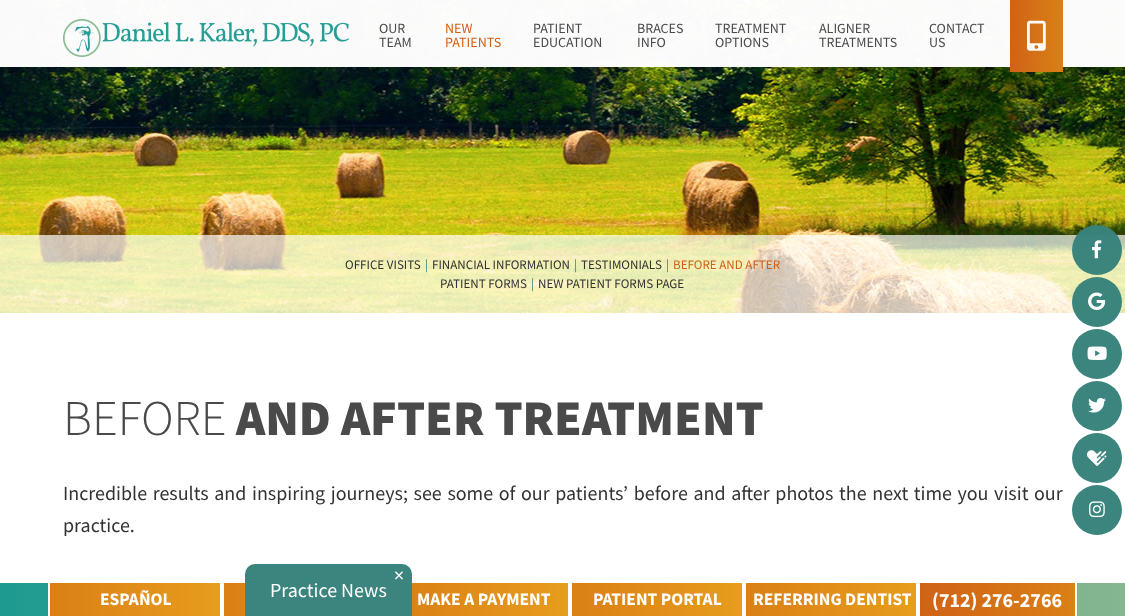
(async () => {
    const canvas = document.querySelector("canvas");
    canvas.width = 1125;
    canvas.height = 616;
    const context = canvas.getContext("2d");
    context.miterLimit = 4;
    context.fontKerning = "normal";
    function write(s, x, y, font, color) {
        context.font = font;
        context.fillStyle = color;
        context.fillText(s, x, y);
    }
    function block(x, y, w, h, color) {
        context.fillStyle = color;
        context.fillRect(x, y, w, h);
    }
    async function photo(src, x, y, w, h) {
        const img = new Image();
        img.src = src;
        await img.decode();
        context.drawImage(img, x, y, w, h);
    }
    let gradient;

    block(0, 0, 1125, 616, "rgb(255, 255, 255)");
    await photo("media/1.png", 0, 0, 1125, 313);
    block(0, 0, 1125, 67, "rgba(255, 255, 255, 0.98)");
    await photo("media/2.png", 63, 19, 286, 38);
    block(1010, 0, 53, 72, "rgba(214, 116, 26, 0.98)");
    gradient = context.createLinearGradient(1010, 36, 1063, 36);
    gradient.addColorStop(0, "rgba(208, 98, 22, 0.98)");
    gradient.addColorStop(1, "rgba(218, 128, 22, 0.98)");
    context.fillStyle = gradient;
    context.fillRect(1010, 0, 53, 72);
    await photo("media/3.png", 1027, 20, 19, 31);
    block(0, 235, 1125, 78, "rgba(255, 255, 255, 0.69)");
    context.fillStyle = "rgba(55, 131, 123, 0.98)";
    context.beginPath();
    context.arc(1097, 250, 25, 0, Math.PI * 2);
    context.fill();
    await photo("media/4.png", 1092, 240, 10, 19);
    context.beginPath();
    context.arc(1097, 302, 25, 0, Math.PI * 2);
    context.fill();
    await photo("media/5.png", 1088, 292, 18, 18);
    context.fillStyle = "rgb(59, 133, 126)";
    context.beginPath();
    context.arc(1097, 354, 25, 0, Math.PI * 2);
    context.fill();
    await photo("media/6.png", 1087, 346, 20, 14);
    context.beginPath();
    context.arc(1097, 406, 25, 0, Math.PI * 2);
    context.fill();
    await photo("media/7.png", 1088, 397, 18, 16);
    context.beginPath();
    context.arc(1097, 458, 25, 0, Math.PI * 2);
    context.fill();
    await photo("media/8.png", 1087, 450, 20, 16);
    context.beginPath();
    context.arc(1097, 510, 25, 0, Math.PI * 2);
    context.fill();
    await photo("media/9.png", 1089, 501, 16, 17);
    write("OUR", 379, 33, "14px Source Sans Pro", "rgb(74, 74, 74)");
    write("TEAM", 379, 47, "14px Source Sans Pro", "rgb(74, 74, 74)");
    write("NEW", 445, 33, "14px Source Sans Pro", "rgb(208, 98, 22)");
    write("PATIENTS", 445, 47, "14px Source Sans Pro", "rgb(208, 98, 22)");
    write("PATIENT", 533, 33, "14px Source Sans Pro", "rgb(74, 74, 74)");
    write("EDUCATION", 533, 47, "14px Source Sans Pro", "rgb(74, 74, 74)");
    write("BRACES", 637, 33, "14px Source Sans Pro", "rgb(74, 74, 74)");
    write("INFO", 637, 47, "14px Source Sans Pro", "rgb(74, 74, 74)");
    write("TREATMENT", 715, 33, "14px Source Sans Pro", "rgb(74, 74, 74)");
    write("OPTIONS", 715, 47, "14px Source Sans Pro", "rgb(74, 74, 74)");
    write("ALIGNER", 819, 33, "14px Source Sans Pro", "rgb(74, 74, 74)");
    write("TREATMENTS", 819, 47, "14px Source Sans Pro", "rgb(74, 74, 74)");
    write("CONTACT", 929, 33, "14px Source Sans Pro", "rgb(74, 74, 74)");
    write("US", 929, 47, "14px Source Sans Pro", "rgb(74, 74, 74)");
    write("OFFICE VISITS", 345, 269, "13px Source Sans Pro", "rgb(51, 51, 51)");
    write("|", 425, 269, "13px Source Sans Pro", "rgb(55, 131, 123)");
    write("FINANCIAL INFORMATION", 432, 269, "13px Source Sans Pro", "rgb(51, 51, 51)");
    write("|", 574, 269, "13px Source Sans Pro", "rgb(55, 131, 123)");
    write("TESTIMONIALS", 581, 269, "13px Source Sans Pro", "rgb(51, 51, 51)");
    write("|", 666, 269, "13px Source Sans Pro", "rgb(55, 131, 123)");
    write("BEFORE AND AFTER", 673, 269, "13px Source Sans Pro", "rgb(208, 98, 22)");
    write("PATIENT FORMS", 440, 288, "13px Source Sans Pro", "rgb(51, 51, 51)");
    write("|", 531, 288, "13px Source Sans Pro", "rgb(55, 131, 123)");
    write("NEW PATIENT FORMS PAGE", 538, 288, "13px Source Sans Pro", "rgb(51, 51, 51)");
    write("BEFORE", 63, 435, "300 50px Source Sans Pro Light", "rgb(74, 74, 74)");
    write("AND AFTER TREATMENT", 236, 435, "900 50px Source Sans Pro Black", "rgb(74, 74, 74)");
    context.wordSpacing = "1.6px";
    write("Incredible results and inspiring journeys; see some of our patients’ before and after photos the next time you visit our", 63, 500, "20px Source Sans Pro", "rgb(51, 51, 51)");
    context.wordSpacing = "0px";
    write("practice.", 63, 532, "20px Source Sans Pro", "rgb(51, 51, 51)");
    gradient = context.createLinearGradient(0, 600, 1125, 600);
    gradient.addColorStop(0, "rgb(31, 154, 144)");
    gradient.addColorStop(1, "rgb(133, 182, 144)");
    context.fillStyle = gradient;
    context.fillRect(0, 583, 1125, 33);
    context.fillStyle = "rgb(59, 133, 126)";
    context.beginPath();
    context.roundRect(245, 564, 167, 52, [10, 10, 0, 0]);
    context.fill();
    write("×", 394, 582, "20px Source Sans Pro", "rgb(255, 255, 255)");
    write("Practice News", 270, 597, "20px Source Sans Pro", "rgb(255, 255, 255)");
    gradient = context.createLinearGradient(50, 600, 220, 600);
    gradient.addColorStop(0, "rgb(218, 128, 22)");
    gradient.addColorStop(1, "rgb(231, 157, 29)");
    context.fillStyle = gradient;
    context.fillRect(50, 583, 170, 33);
    block(220, 583, 4, 33, "rgb(255, 255, 255)");
    block(48, 583, 2, 33, "rgb(255, 255, 255)");
    write("ESPAÑOL", 100, 605, "bold 17.5px Source Sans Pro", "rgb(255, 255, 255)");
    gradient = context.createLinearGradient(224, 600, 394, 600);
    gradient.addColorStop(0, "rgb(218, 128, 22)");
    gradient.addColorStop(1, "rgb(231, 157, 29)");
    context.fillStyle = gradient;
    context.fillRect(224, 583, 21, 33);
    gradient = context.createLinearGradient(398, 600, 568, 600);
    gradient.addColorStop(0, "rgb(218, 128, 22)");
    gradient.addColorStop(1, "rgb(231, 157, 29)");
    context.fillStyle = gradient;
    context.fillRect(412, 583, 156, 33);
    block(568, 583, 4, 33, "rgb(255, 255, 255)");
    write("MAKE A PAYMENT", 417, 605, "bold 17.5px Source Sans Pro", "rgb(255, 255, 255)");
    gradient = context.createLinearGradient(572, 600, 742, 600);
    gradient.addColorStop(0, "rgb(218, 128, 22)");
    gradient.addColorStop(1, "rgb(231, 157, 29)");
    context.fillStyle = gradient;
    context.fillRect(572, 583, 170, 33);
    block(742, 583, 4, 33, "rgb(255, 255, 255)");
    write("PATIENT PORTAL", 593, 605, "bold 17.5px Source Sans Pro", "rgb(255, 255, 255)");
    gradient = context.createLinearGradient(746, 600, 916, 600);
    gradient.addColorStop(0, "rgb(218, 128, 22)");
    gradient.addColorStop(1, "rgb(231, 157, 29)");
    context.fillStyle = gradient;
    context.fillRect(746, 583, 170, 33);
    block(916, 583, 4, 33, "rgb(255, 255, 255)");
    write("REFERRING DENTIST", 753, 605, "bold 17.5px Source Sans Pro", "rgb(255, 255, 255)");
    gradient = context.createLinearGradient(920, 600, 1075, 600);
    gradient.addColorStop(0, "rgb(208, 98, 22)");
    gradient.addColorStop(1, "rgb(218, 128, 22)");
    context.fillStyle = gradient;
    context.fillRect(920, 583, 155, 33);
    block(1075, 583, 2, 33, "rgb(255, 255, 255)");
    write("(712) 276-2766", 932, 607, "bold 20px Source Sans Pro", "rgb(255, 255, 255)");
})();
